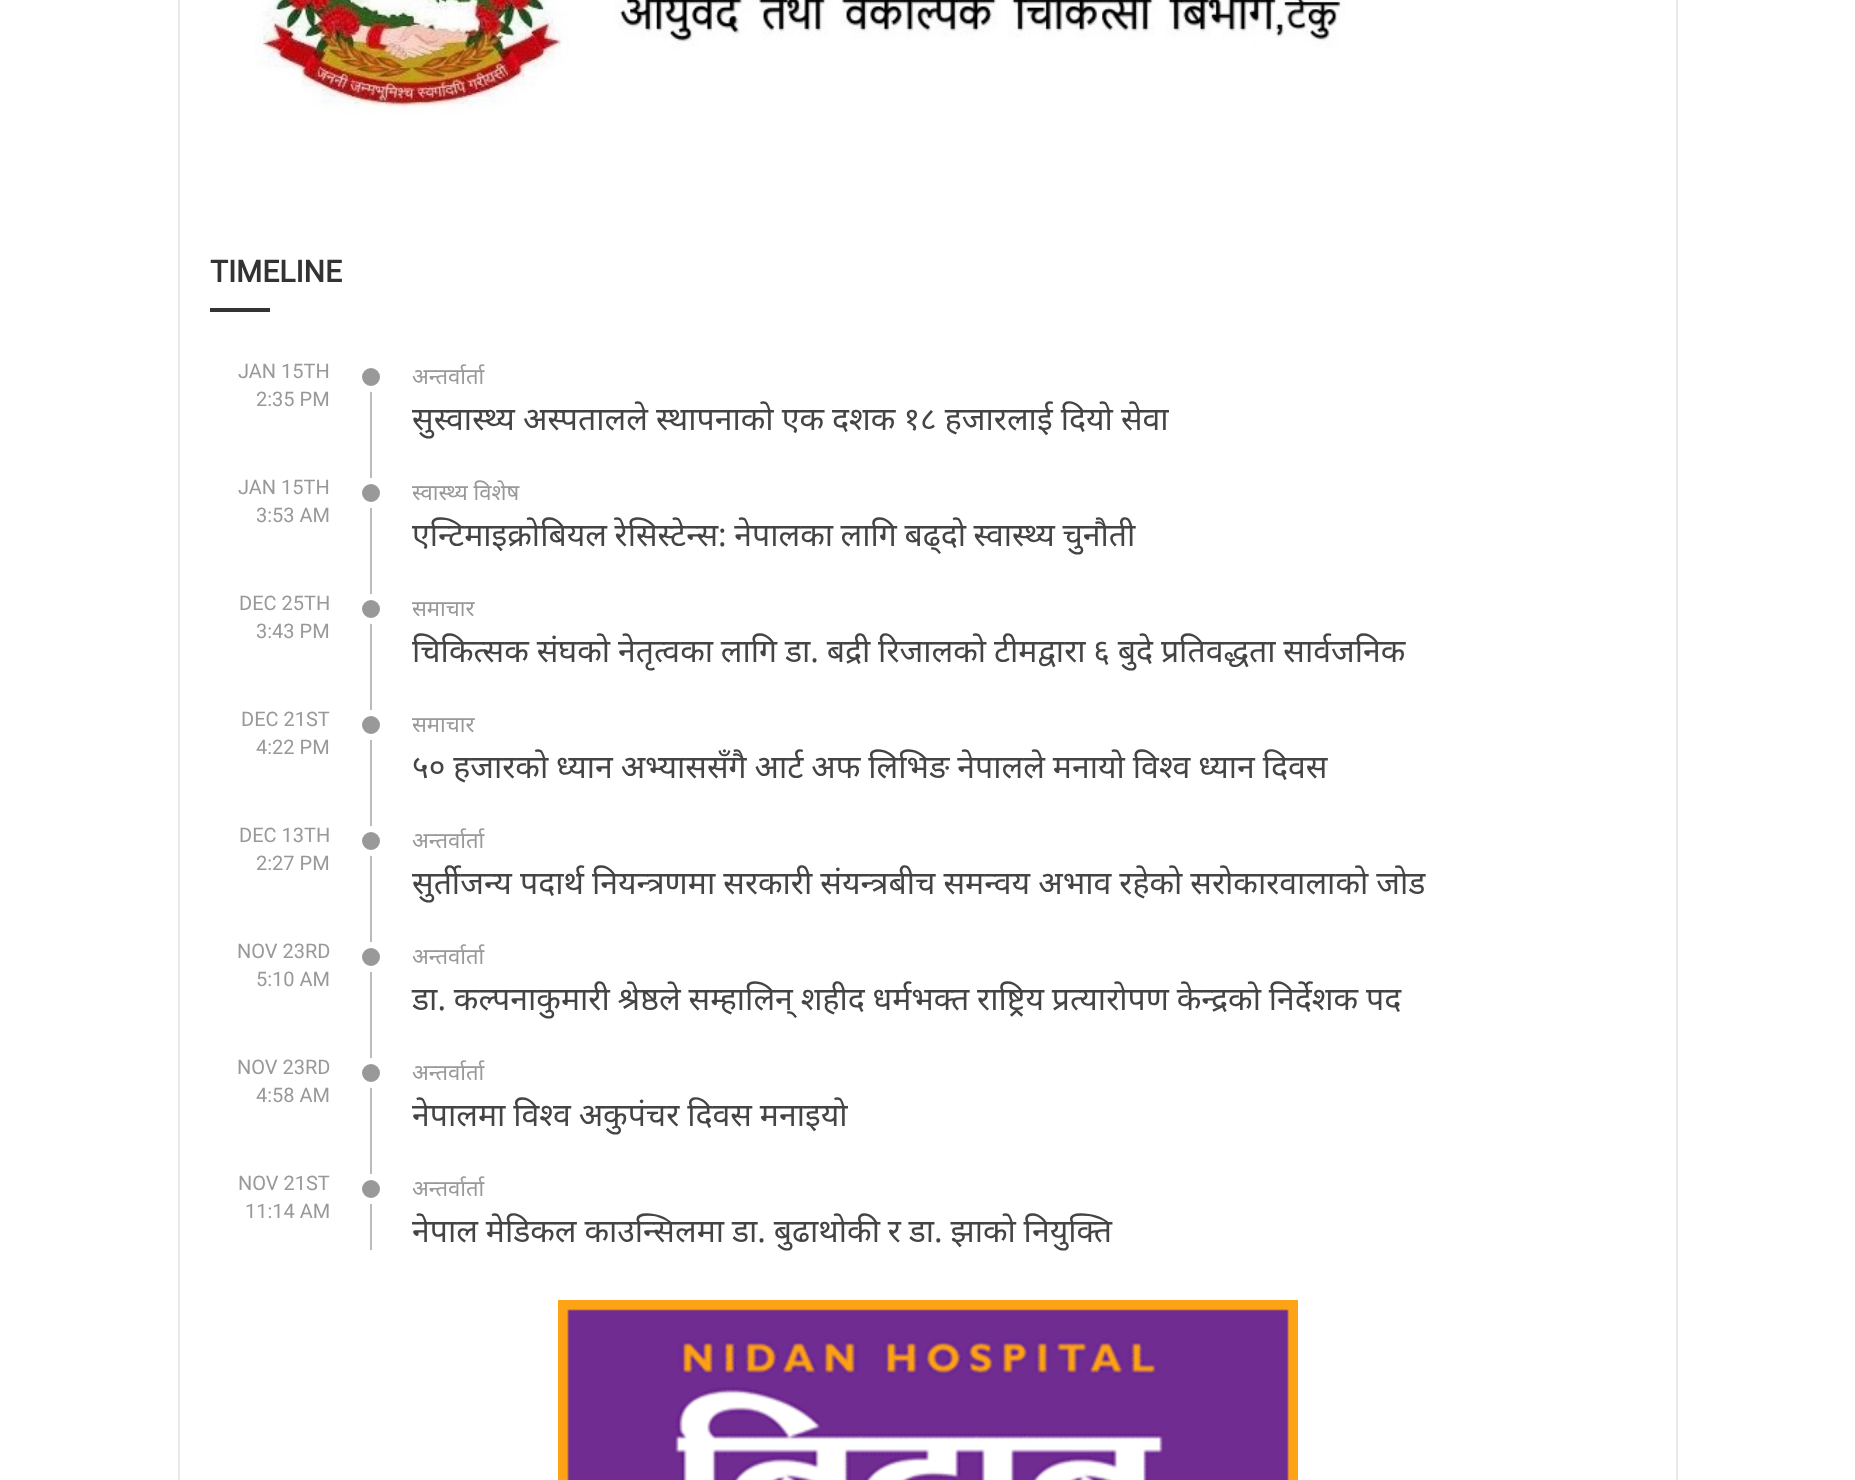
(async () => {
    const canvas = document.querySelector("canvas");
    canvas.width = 1855;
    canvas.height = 1480;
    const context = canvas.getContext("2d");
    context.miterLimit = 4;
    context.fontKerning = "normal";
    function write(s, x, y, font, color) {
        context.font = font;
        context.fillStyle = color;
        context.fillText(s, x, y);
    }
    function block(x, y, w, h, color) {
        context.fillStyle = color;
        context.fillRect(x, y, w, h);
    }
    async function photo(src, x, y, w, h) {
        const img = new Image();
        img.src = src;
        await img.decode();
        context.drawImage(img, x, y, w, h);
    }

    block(0, 0, 1855, 1480, "rgb(255, 255, 255)");
    context.strokeStyle = "rgb(233, 233, 233)";
    context.lineWidth = 2;
    context.strokeRect(179, -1, 1498, 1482);
    await photo("media/1.png", 255, 0, 1090, 114);
    write("TIMELINE", 210, 282, "bold 30px Roboto", "rgb(51, 51, 51)");
    block(210, 308, 60, 4, "rgb(51, 51, 51)");
    write("JAN 15TH", 238, 378, "20px Roboto", "rgb(153, 153, 153)");
    block(370, 362, 2, 888, "rgb(187, 187, 187)");
    context.fillStyle = "rgb(153, 153, 153)";
    context.beginPath();
    context.arc(371, 377, 12, 0, Math.PI * 2);
    context.fill();
    context.strokeStyle = "rgb(255, 255, 255)";
    context.lineWidth = 6;
    context.stroke();
    write("अन्तर्वार्ता", 412, 384, "22px Noto Sans", "rgb(153, 153, 153)");
    context.wordSpacing = "-0.25px";
    write("सुस्वास्थ्य अस्पतालले स्थापनाको एक दशक १८ हजारलाई दियो सेवा", 412, 430, "32px Noto Sans", "rgb(68, 68, 68)");
    context.wordSpacing = "0px";
    write("2:35 PM", 256, 406, "20px Roboto", "rgb(153, 153, 153)");
    write("JAN 15TH", 238, 494, "20px Roboto", "rgb(153, 153, 153)");
    context.beginPath();
    context.arc(371, 493, 12, 0, Math.PI * 2);
    context.fill();
    context.stroke();
    write("स्वास्थ्य विशेष", 412, 500, "22px Noto Sans", "rgb(153, 153, 153)");
    context.wordSpacing = "-0.75px";
    write("एन्टिमाइक्रोबियल रेसिस्टेन्स: नेपालका लागि बढ्दो स्वास्थ्य चुनौती", 412, 546, "32px Noto Sans", "rgb(68, 68, 68)");
    context.wordSpacing = "0px";
    write("3:53 AM", 256, 522, "20px Roboto", "rgb(153, 153, 153)");
    write("DEC 25TH", 239, 610, "20px Roboto", "rgb(153, 153, 153)");
    context.beginPath();
    context.arc(371, 609, 12, 0, Math.PI * 2);
    context.fill();
    context.stroke();
    write("समाचार", 412, 616, "22px Noto Sans", "rgb(153, 153, 153)");
    context.wordSpacing = "-0.5px";
    write("चिकित्सक संघको नेतृत्वका लागि डा. बद्री रिजालको टीमद्वारा ६ बुदे प्रतिवद्धता सार्वजनिक", 412, 662, "32px Noto Sans", "rgb(68, 68, 68)");
    context.wordSpacing = "0px";
    write("3:43 PM", 256, 638, "20px Roboto", "rgb(153, 153, 153)");
    write("DEC 21ST", 241, 726, "20px Roboto", "rgb(153, 153, 153)");
    context.beginPath();
    context.arc(371, 725, 12, 0, Math.PI * 2);
    context.fill();
    context.stroke();
    write("समाचार", 412, 732, "22px Noto Sans", "rgb(153, 153, 153)");
    context.wordSpacing = "-0.4px";
    write("५० हजारको ध्यान अभ्याससँगै आर्ट अफ लिभिङ नेपालले मनायो विश्व ध्यान दिवस", 412, 778, "32px Noto Sans", "rgb(68, 68, 68)");
    context.wordSpacing = "0px";
    write("4:22 PM", 256, 754, "20px Roboto", "rgb(153, 153, 153)");
    write("DEC 13TH", 239, 842, "20px Roboto", "rgb(153, 153, 153)");
    context.beginPath();
    context.arc(371, 841, 12, 0, Math.PI * 2);
    context.fill();
    context.stroke();
    write("अन्तर्वार्ता", 412, 848, "22px Noto Sans", "rgb(153, 153, 153)");
    context.wordSpacing = "-0.25px";
    write("सुर्तीजन्य पदार्थ नियन्त्रणमा सरकारी संयन्त्रबीच समन्वय अभाव रहेको सरोकारवालाको जोड", 412, 894, "32px Noto Sans", "rgb(68, 68, 68)");
    context.wordSpacing = "0px";
    write("2:27 PM", 256, 870, "20px Roboto", "rgb(153, 153, 153)");
    write("NOV 23RD", 237, 958, "20px Roboto", "rgb(153, 153, 153)");
    context.beginPath();
    context.arc(371, 957, 12, 0, Math.PI * 2);
    context.fill();
    context.stroke();
    write("अन्तर्वार्ता", 412, 964, "22px Noto Sans", "rgb(153, 153, 153)");
    context.wordSpacing = "-0.5px";
    write("डा. कल्पनाकुमारी श्रेष्ठले सम्हालिन् शहीद धर्मभक्त राष्ट्रिय प्रत्यारोपण केन्द्रको निर्देशक पद", 412, 1010, "32px Noto Sans", "rgb(68, 68, 68)");
    context.wordSpacing = "0px";
    write("5:10 AM", 256, 986, "20px Roboto", "rgb(153, 153, 153)");
    write("NOV 23RD", 237, 1074, "20px Roboto", "rgb(153, 153, 153)");
    context.beginPath();
    context.arc(371, 1073, 12, 0, Math.PI * 2);
    context.fill();
    context.stroke();
    write("अन्तर्वार्ता", 412, 1080, "22px Noto Sans", "rgb(153, 153, 153)");
    context.wordSpacing = "-0.4px";
    write("नेपालमा विश्व अकुपंचर दिवस मनाइयो", 412, 1126, "32px Noto Sans", "rgb(68, 68, 68)");
    context.wordSpacing = "0px";
    write("4:58 AM", 256, 1102, "20px Roboto", "rgb(153, 153, 153)");
    write("NOV 21ST", 238, 1190, "20px Roboto", "rgb(153, 153, 153)");
    context.beginPath();
    context.arc(371, 1189, 12, 0, Math.PI * 2);
    context.fill();
    context.stroke();
    write("अन्तर्वार्ता", 412, 1196, "22px Noto Sans", "rgb(153, 153, 153)");
    context.wordSpacing = "-0.5px";
    write("नेपाल मेडिकल काउन्सिलमा डा. बुढाथोकी र डा. झाको नियुक्ति", 412, 1242, "32px Noto Sans", "rgb(68, 68, 68)");
    context.wordSpacing = "0px";
    write("11:14 AM", 245, 1218, "20px Roboto", "rgb(153, 153, 153)");
    await photo("media/2.png", 558, 1300, 740, 180);
})();
